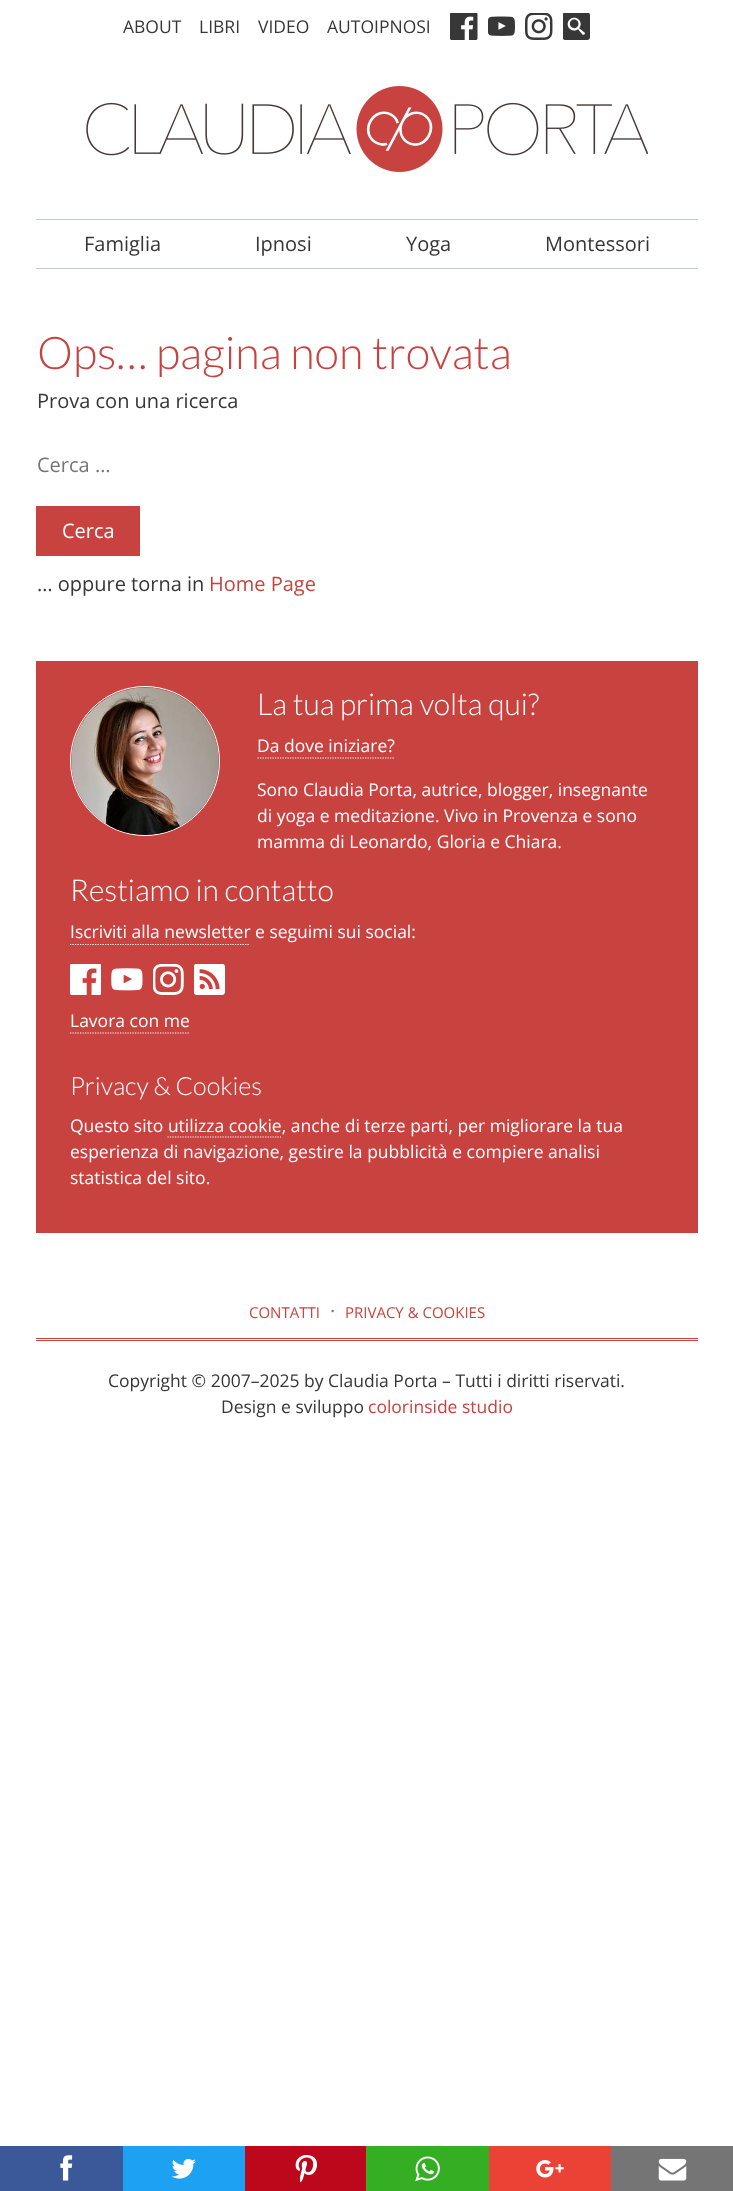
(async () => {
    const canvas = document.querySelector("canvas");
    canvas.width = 733;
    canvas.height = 2191;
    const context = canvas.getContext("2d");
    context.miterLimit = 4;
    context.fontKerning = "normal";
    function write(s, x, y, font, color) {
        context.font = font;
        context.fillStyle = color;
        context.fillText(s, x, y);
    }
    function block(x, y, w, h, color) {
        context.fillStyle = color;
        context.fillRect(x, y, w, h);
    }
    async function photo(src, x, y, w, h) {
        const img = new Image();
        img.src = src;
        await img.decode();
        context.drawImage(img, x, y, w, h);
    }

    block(0, 0, 733, 2191, "rgb(255, 255, 255)");
    write("ABOUT", 123, 33, "17.5px Open Sans", "rgb(55, 55, 55)");
    write("LIBRI", 199, 33, "17.5px Open Sans", "rgb(55, 55, 55)");
    write("VIDEO", 258, 33, "17.5px Open Sans", "rgb(55, 55, 55)");
    write("AUTOIPNOSI", 327, 33, "17.5px Open Sans", "rgb(55, 55, 55)");
    await photo("media/1.png", 450, 13, 28, 27);
    await photo("media/2.png", 488, 16, 27, 20);
    await photo("media/3.png", 525, 13, 28, 27);
    await photo("media/4.png", 563, 13, 27, 27);
    await photo("media/5.png", 86, 86, 562, 86);
    block(36, 219, 662, 1, "rgb(194, 204, 201)");
    block(36, 268, 662, 1, "rgb(194, 204, 201)");
    write("Famiglia", 84, 251, "20px Open Sans", "rgb(55, 55, 55)");
    write("Ipnosi", 255, 251, "20px Open Sans", "rgb(55, 55, 55)");
    write("Yoga", 406, 251, "20px Open Sans", "rgb(55, 55, 55)");
    write("Montessori", 545, 251, "20px Open Sans", "rgb(55, 55, 55)");
    write("Ops… pagina non trovata", 37, 369, "300 45px Lato", "rgb(200, 67, 63)");
    write("Prova con una ricerca", 37, 408, "20px Open Sans", "rgb(55, 55, 55)");
    write("Cerca …", 37, 472, "20px Open Sans", "rgb(117, 117, 117)");
    block(36, 506, 104, 50, "rgb(200, 67, 63)");
    write("Cerca", 62, 538, "20px Open Sans", "rgb(255, 255, 255)");
    write("… oppure torna in", 37, 591, "20px Open Sans", "rgb(55, 55, 55)");
    write("Home Page", 209, 591, "20px Open Sans", "rgb(200, 67, 63)");
    block(36, 661, 662, 572, "rgb(200, 67, 63)");
    context.beginPath();
    context.arc(145, 761, 74.5, 0, Math.PI * 2);
    context.strokeStyle = "rgb(255, 255, 255)";
    context.stroke();
    await photo("media/6.png", 71, 687, 148, 148);
    write("La tua prima volta qui?", 257, 715, "300 30px Lato", "rgb(255, 255, 255)");
    write("Da dove iniziare?", 257, 752, "17.5px Open Sans", "rgb(255, 255, 255)");
    context.beginPath();
    context.moveTo(257.5, 758);
    context.lineTo(395, 758);
    context.lineWidth = 1.2;
    context.setLineDash([1.25, 1.25]);
    context.stroke();
    write("Sono Claudia Porta, autrice, blogger, insegnante", 257, 796, "17.5px Open Sans", "rgb(255, 255, 255)");
    write("di yoga e meditazione. Vivo in Provenza e sono", 257, 822, "17.5px Open Sans", "rgb(255, 255, 255)");
    write("mamma di Leonardo, Gloria e Chiara.", 257, 848, "17.5px Open Sans", "rgb(255, 255, 255)");
    write("Restiamo in contatto", 70, 901, "300 30px Lato", "rgb(255, 255, 255)");
    write("Iscriviti alla newsletter e seguimi sui social:", 70, 938, "17.5px Open Sans", "rgb(255, 255, 255)");
    context.beginPath();
    context.moveTo(70, 944.5);
    context.lineTo(250, 944.5);
    context.stroke();
    await photo("media/7.png", 70, 964, 31, 31);
    await photo("media/8.png", 111, 968, 32, 23);
    await photo("media/9.png", 153, 964, 31, 31);
    await photo("media/10.png", 194, 964, 31, 31);
    write("Lavora con me", 70, 1027, "17.5px Open Sans", "rgb(255, 255, 255)");
    context.beginPath();
    context.moveTo(70, 1033);
    context.lineTo(190, 1033);
    context.stroke();
    write("Privacy & Cookies", 70, 1095, "300 25px Lato", "rgb(255, 255, 255)");
    write("Questo sito utilizza cookie, anche di terze parti, per migliorare la tua", 70, 1132, "17.5px Open Sans", "rgb(255, 255, 255)");
    context.beginPath();
    context.moveTo(167.5, 1137);
    context.lineTo(281, 1137);
    context.stroke();
    write("esperienza di navigazione, gestire la pubblicità e compiere analisi", 70, 1158, "17.5px Open Sans", "rgb(255, 255, 255)");
    write("statistica del sito.", 70, 1184, "17.5px Open Sans", "rgb(255, 255, 255)");
    block(36, 1338, 662, 1, "rgb(200, 67, 63)");
    block(36, 1340, 662, 1, "rgb(200, 67, 63)");
    write("CONTATTI", 249, 1318, "15px Open Sans", "rgb(200, 67, 63)");
    write("·", 330, 1318, "20px Open Sans", "rgb(117, 117, 117)");
    write("PRIVACY & COOKIES", 345, 1318, "15px Open Sans", "rgb(200, 67, 63)");
    write("Copyright © 2007–2025 by Claudia Porta – Tutti i diritti riservati.", 108, 1387, "17.5px Open Sans", "rgb(55, 55, 55)");
    write("Design e sviluppo", 221, 1413, "17.5px Open Sans", "rgb(55, 55, 55)");
    write("colorinside studio", 368, 1413, "17.5px Open Sans", "rgb(200, 67, 63)");
    block(0, 2146, 123, 45, "rgb(59, 89, 152)");
    await photo("media/11.png", 60, 2155, 13, 26);
    block(123, 2146, 122, 45, "rgb(29, 161, 242)");
    await photo("media/12.png", 171, 2158, 25, 21);
    block(245, 2146, 121, 45, "rgb(189, 8, 28)");
    await photo("media/13.png", 295, 2155, 22, 28);
    block(366, 2146, 123, 45, "rgb(52, 175, 35)");
    await photo("media/14.png", 415, 2156, 25, 26);
    block(489, 2146, 122, 45, "rgb(234, 67, 53)");
    await photo("media/15.png", 536, 2160, 28, 18);
    block(611, 2146, 122, 45, "rgb(117, 117, 117)");
    await photo("media/16.png", 658, 2158, 29, 23);
})();
